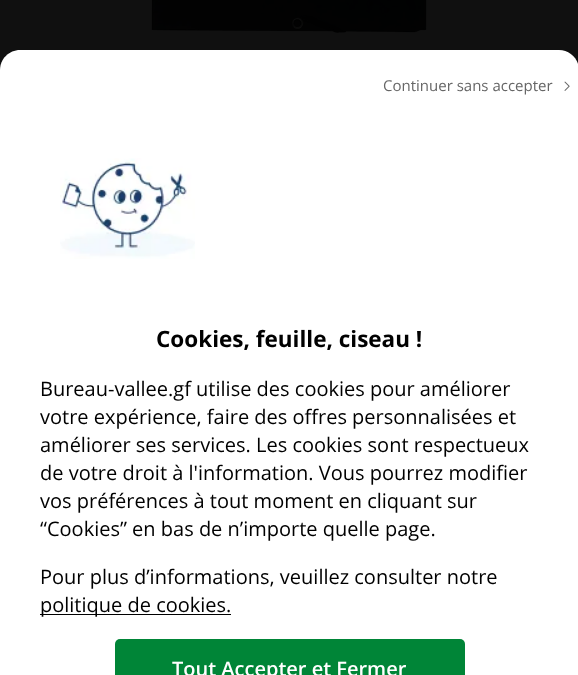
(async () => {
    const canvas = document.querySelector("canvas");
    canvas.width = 578;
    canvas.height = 675;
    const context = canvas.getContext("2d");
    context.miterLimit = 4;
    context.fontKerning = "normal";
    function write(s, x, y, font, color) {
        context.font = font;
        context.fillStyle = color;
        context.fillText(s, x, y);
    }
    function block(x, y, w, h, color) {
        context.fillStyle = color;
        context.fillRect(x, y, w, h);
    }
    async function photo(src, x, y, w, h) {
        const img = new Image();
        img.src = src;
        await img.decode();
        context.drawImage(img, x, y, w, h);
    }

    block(0, 0, 578, 675, "rgb(16, 16, 16)");
    await photo("media/1.png", 150, 0, 278, 34);
    context.fillStyle = "rgb(255, 255, 255)";
    context.beginPath();
    context.moveTo(20, 50);
    context.lineTo(559, 50);
    context.bezierCurveTo(570, 50, 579, 59, 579, 70);
    context.lineTo(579, 675);
    context.lineTo(0, 675);
    context.lineTo(0, 70);
    context.bezierCurveTo(0, 59, 9, 50, 20, 50);
    context.closePath();
    context.fill();
    write("Continuer sans accepter", 383, 91, "15px Open Sans", "rgb(102, 102, 102)");
    await photo("media/2.png", 564, 81, 6, 10);
    await photo("media/3.png", 60, 158, 135, 101);
    write("Cookies, feuille, ciseau !", 156, 347, "bold 22.5px Open Sans", "rgb(0, 0, 0)");
    write("Bureau-vallee.gf utilise des cookies pour améliorer", 40, 396, "20px Open Sans", "rgb(0, 0, 0)");
    write("votre expérience, faire des offres personnalisées et", 40, 424, "20px Open Sans", "rgb(0, 0, 0)");
    write("améliorer ses services. Les cookies sont respectueux", 40, 452, "20px Open Sans", "rgb(0, 0, 0)");
    write("de votre droit à l'information. Vous pourrez modifier", 40, 480, "20px Open Sans", "rgb(0, 0, 0)");
    write("vos préférences à tout moment en cliquant sur", 40, 508, "20px Open Sans", "rgb(0, 0, 0)");
    write("“Cookies” en bas de n’importe quelle page.", 40, 536, "20px Open Sans", "rgb(0, 0, 0)");
    write("Pour plus d’informations, veuillez consulter notre", 40, 584, "20px Open Sans", "rgb(0, 0, 0)");
    block(40, 614, 191, 1, "rgb(0, 0, 0)");
    write("politique de cookies.", 40, 612, "20px Open Sans", "rgb(0, 0, 0)");
    context.fillStyle = "rgb(0, 133, 55)";
    context.beginPath();
    context.roundRect(115, 639, 350, 36, [5, 5, 0, 0]);
    context.fill();
    write("Tout Accepter et Fermer", 172, 676, "600 20px Open Sans", "rgb(255, 255, 255)");
})();
